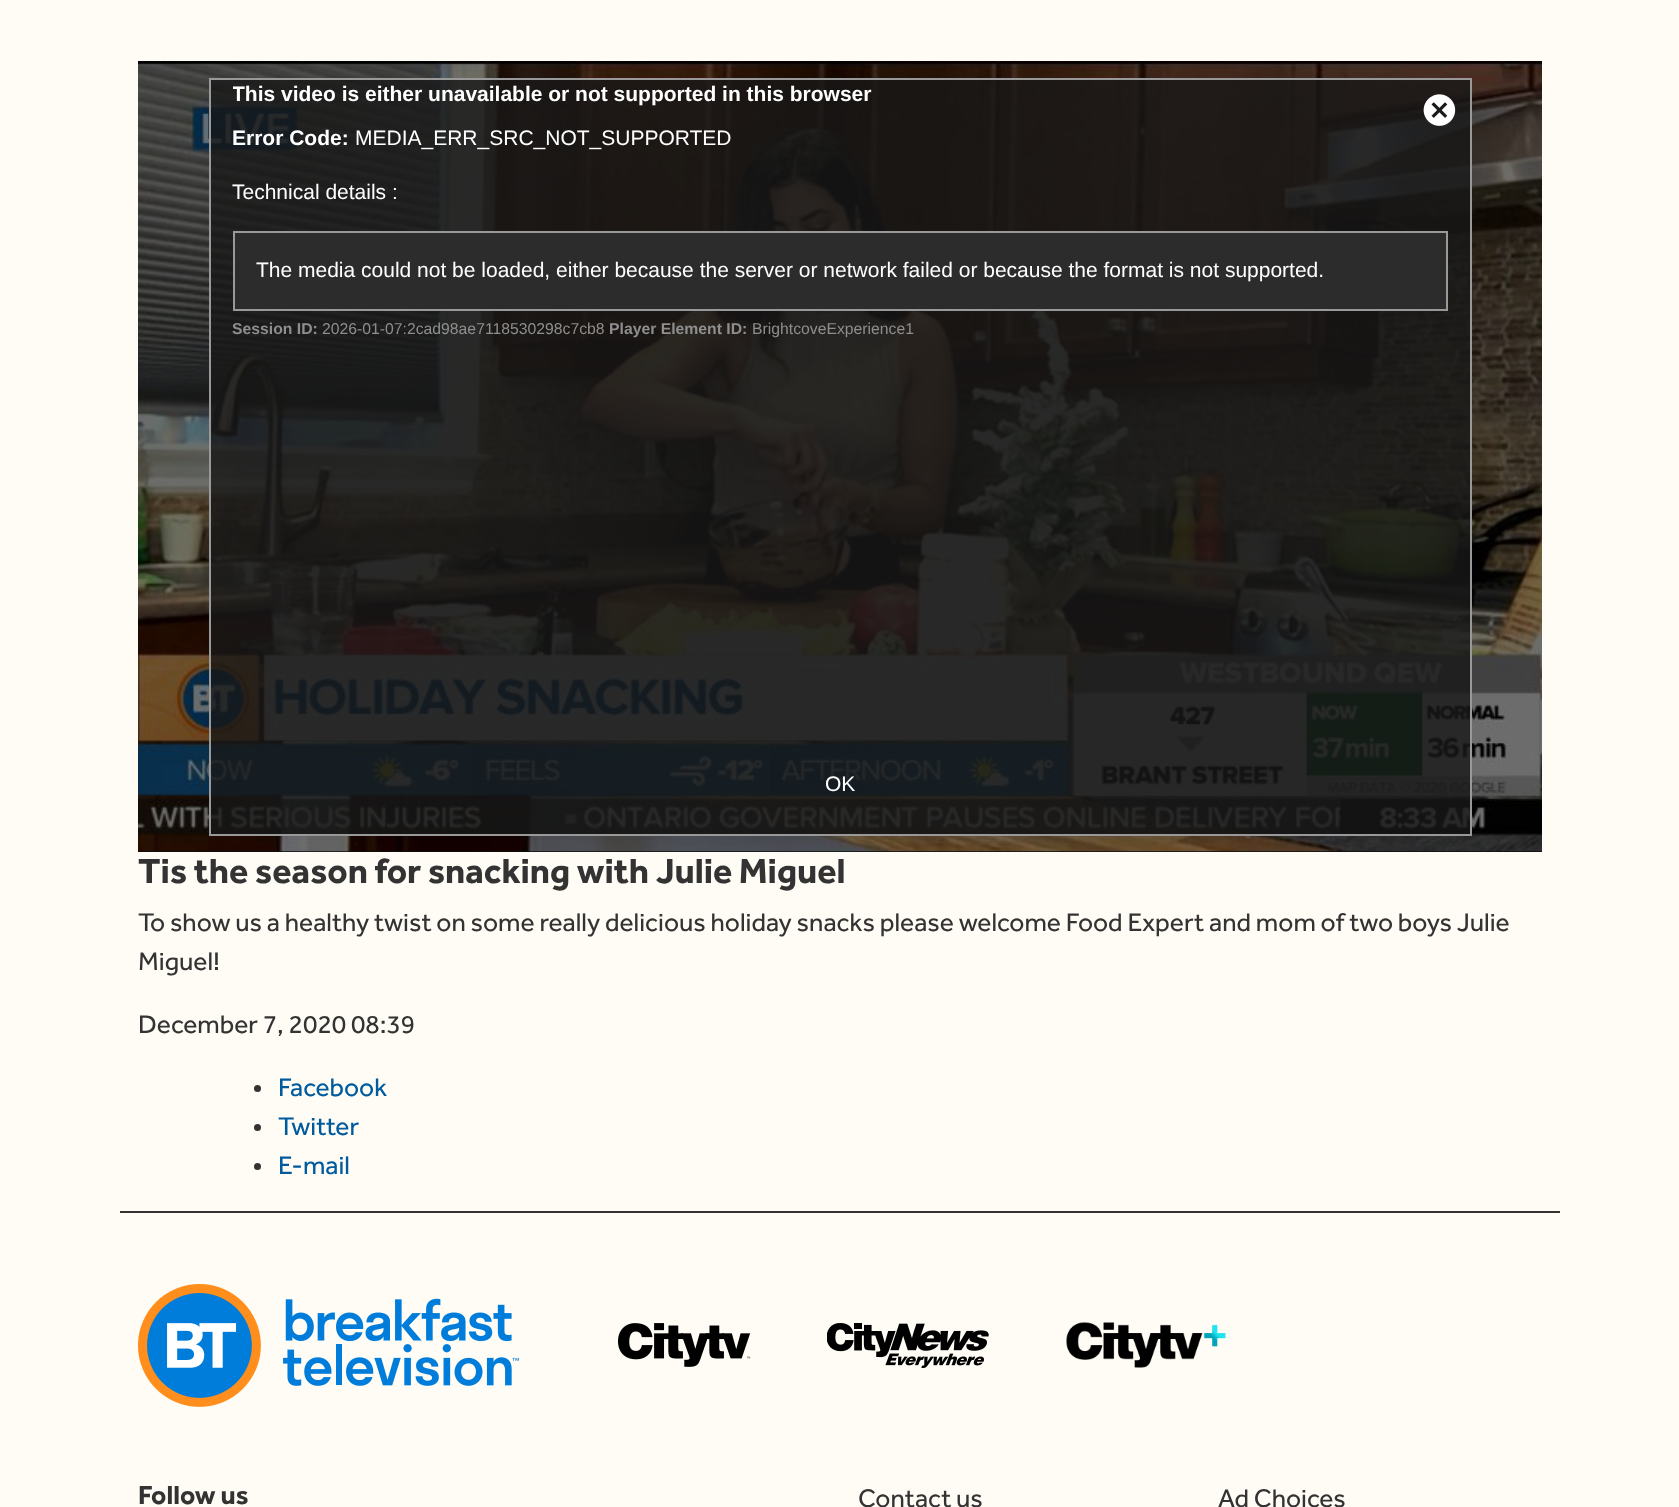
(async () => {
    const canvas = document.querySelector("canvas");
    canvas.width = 1679;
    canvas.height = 1507;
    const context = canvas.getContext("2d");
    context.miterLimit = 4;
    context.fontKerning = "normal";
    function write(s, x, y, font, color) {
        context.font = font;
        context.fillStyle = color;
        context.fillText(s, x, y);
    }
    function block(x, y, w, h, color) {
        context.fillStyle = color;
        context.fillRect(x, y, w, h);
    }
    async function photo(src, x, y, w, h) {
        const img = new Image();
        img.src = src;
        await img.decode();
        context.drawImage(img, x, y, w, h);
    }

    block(0, 0, 1679, 1507, "rgb(254, 252, 244)");
    block(138, 851, 1404, 1, "rgb(11, 14, 12)");
    await photo("media/1.png", 138, 61, 1404, 791);
    context.fillStyle = "rgba(24, 24, 24, 0.8)";
    context.beginPath();
    context.rect(210, 79, 1261, 756);
    context.fill();
    context.strokeStyle = "rgb(153, 153, 153)";
    context.lineWidth = 2;
    context.stroke();
    context.save();
    context.beginPath();
    context.rect(233, 80, 1215, 663);
    context.clip();
    write("This video is either unavailable or not supported in this browser", 232, 101, "bold 21px Liberation Sans", "rgb(255, 255, 255)");
    context.restore();
    write("Error Code:", 232, 145, "bold 21px Liberation Sans", "rgb(255, 255, 255)");
    write("MEDIA_ERR_SRC_NOT_SUPPORTED", 355, 145, "21px Liberation Sans", "rgb(255, 255, 255)");
    write("Technical details :", 232, 199, "21px Liberation Sans", "rgb(255, 255, 255)");
    context.fillStyle = "rgb(44, 44, 44)";
    context.beginPath();
    context.rect(234, 232, 1213, 78);
    context.fill();
    context.stroke();
    write("The media could not be loaded, either because the server or network failed or because the format is not supported.", 256, 277, "21px Liberation Sans", "rgb(255, 255, 255)");
    write("Session ID:", 232, 334, "bold 15.75px Liberation Sans", "rgb(142, 142, 142)");
    write("2026-01-07:2cad98ae7118530298c7cb8", 322, 334, "15.75px Liberation Sans", "rgb(142, 142, 142)");
    write("Player Element ID:", 609, 334, "bold 15.75px Liberation Sans", "rgb(142, 142, 142)");
    write("BrightcoveExperience1", 752, 334, "15.75px Liberation Sans", "rgb(142, 142, 142)");
    await photo("media/2.png", 1423, 94, 33, 32);
    write("OK", 825, 791, "21px Liberation Sans", "rgb(255, 255, 255)");
    write("Tis the season for snacking with Julie Miguel", 138, 883, "bold 36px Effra", "rgb(51, 51, 51)");
    write("To show us a healthy twist on some really delicious holiday snacks please welcome Food Expert and mom of two boys Julie", 138, 931, "26.4px Effra", "rgb(51, 51, 51)");
    write("Miguel!", 138, 970, "26.4px Effra", "rgb(51, 51, 51)");
    write("December 7, 2020 08:39", 138, 1033, "26.4px Effra", "rgb(51, 51, 51)");
    context.beginPath();
    context.arc(257.5, 1088.5, 3.5, 0, Math.PI * 2);
    context.fill();
    write("Facebook", 278, 1096, "26.4px Effra", "rgb(0, 90, 158)");
    context.fillStyle = "rgb(51, 51, 51)";
    context.beginPath();
    context.arc(257.5, 1127.5, 3.5, 0, Math.PI * 2);
    context.fill();
    write("Twitter", 278, 1135, "26.4px Effra", "rgb(0, 90, 158)");
    context.fillStyle = "rgb(51, 51, 51)";
    context.beginPath();
    context.arc(257.5, 1166.5, 3.5, 0, Math.PI * 2);
    context.fill();
    write("E-mail", 278, 1174, "26.4px Effra", "rgb(0, 90, 158)");
    block(120, 1211, 1440, 2, "rgb(51, 51, 51)");
    await photo("media/3.png", 138, 1284, 381, 123);
    await photo("media/4.png", 618, 1323, 133, 44);
    await photo("media/5.png", 827, 1323, 162, 45);
    await photo("media/6.png", 1066, 1322, 160, 46);
    write("Follow us", 138, 1504, "bold 27px Effra", "rgb(51, 51, 51)");
    write("Contact us", 858, 1507, "26.4px Effra", "rgb(51, 51, 51)");
    write("Ad Choices", 1218, 1507, "26.4px Effra", "rgb(51, 51, 51)");
})();
